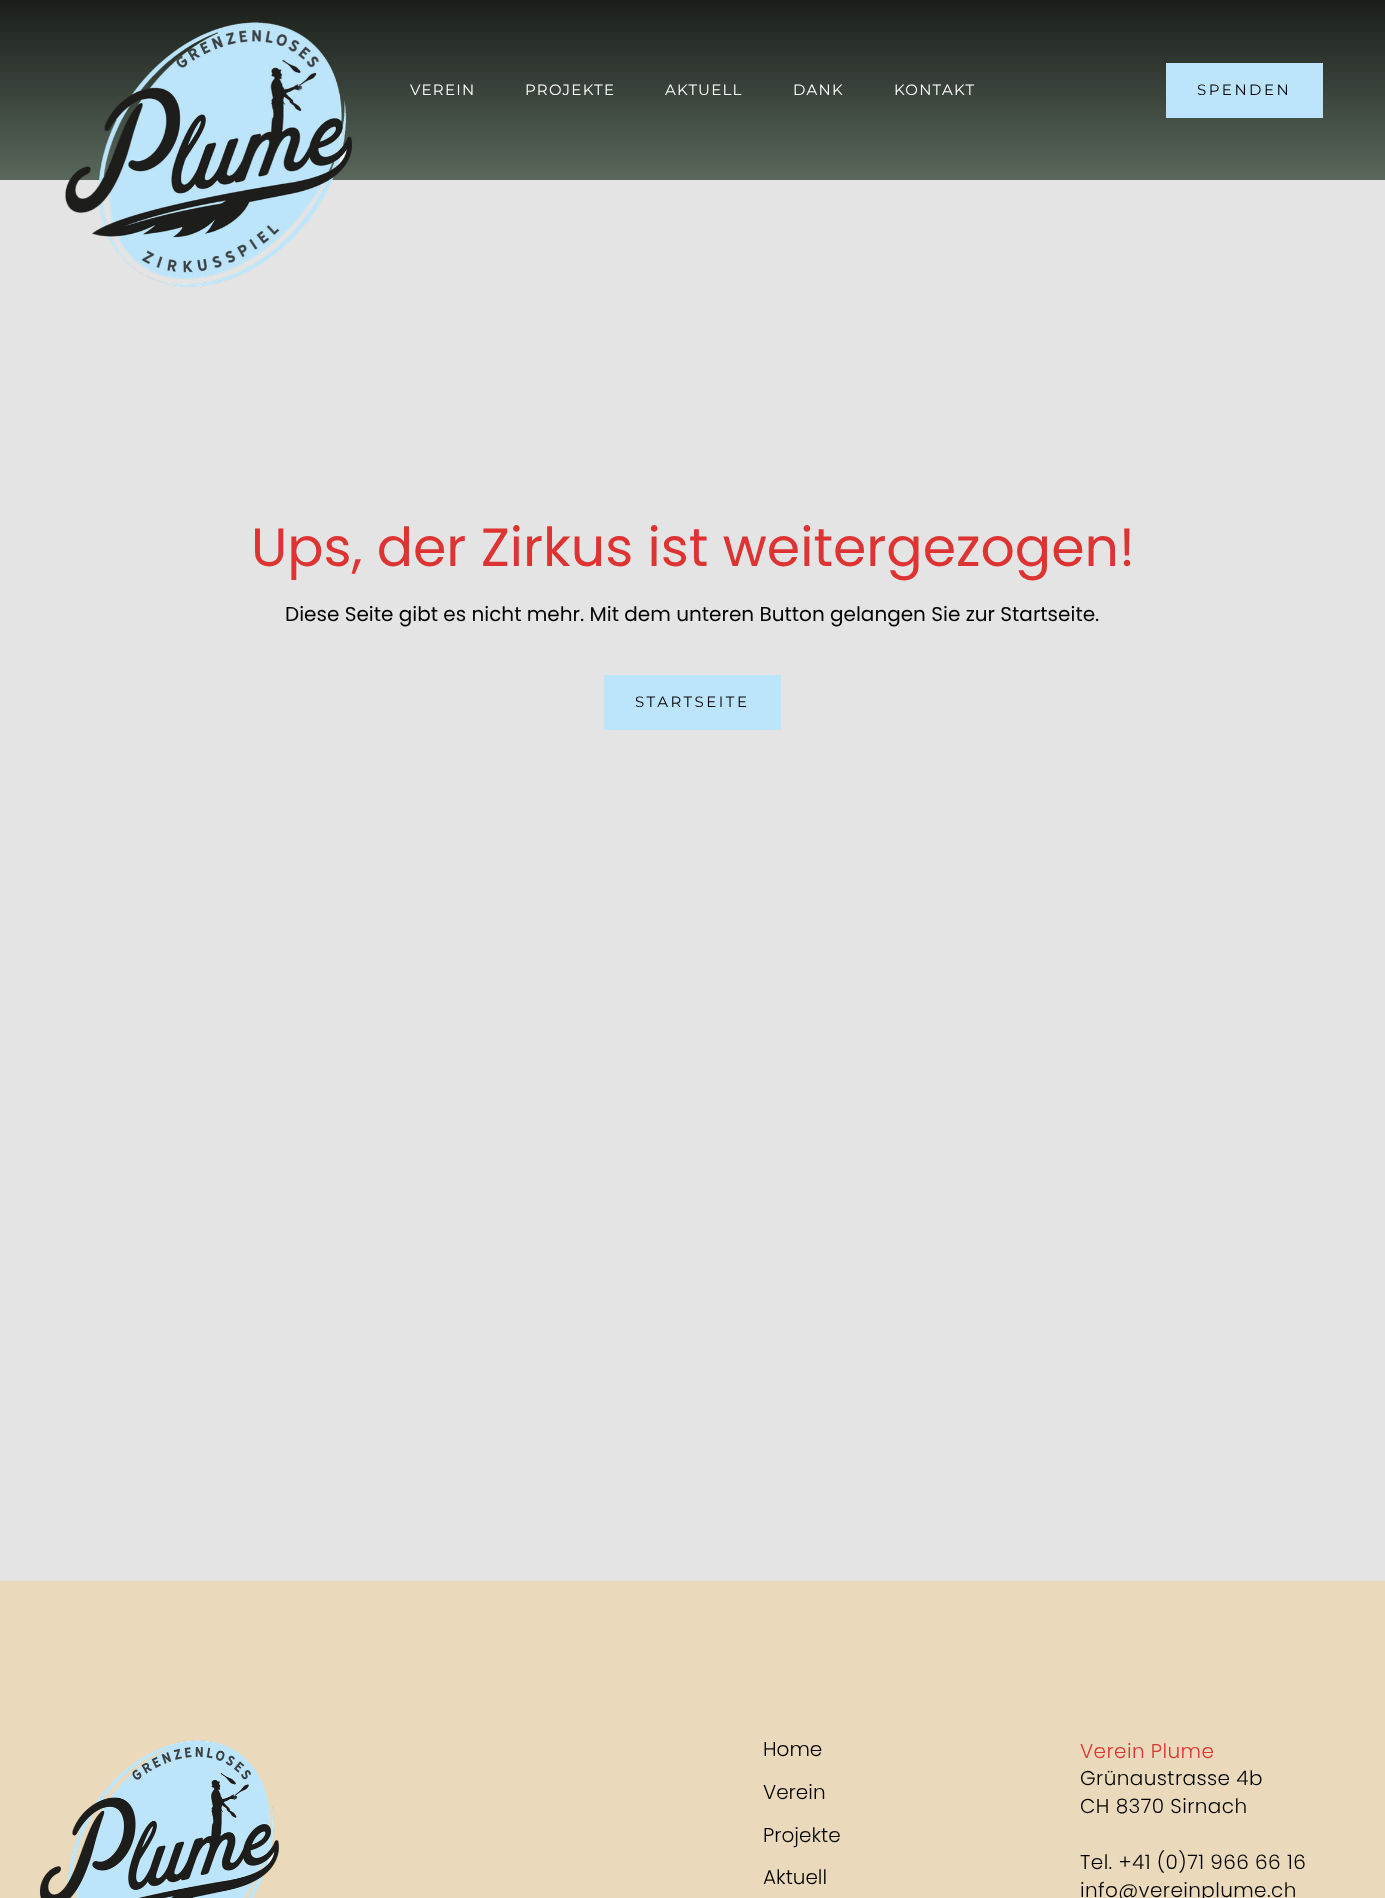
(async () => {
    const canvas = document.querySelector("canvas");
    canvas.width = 1385;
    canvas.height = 1898;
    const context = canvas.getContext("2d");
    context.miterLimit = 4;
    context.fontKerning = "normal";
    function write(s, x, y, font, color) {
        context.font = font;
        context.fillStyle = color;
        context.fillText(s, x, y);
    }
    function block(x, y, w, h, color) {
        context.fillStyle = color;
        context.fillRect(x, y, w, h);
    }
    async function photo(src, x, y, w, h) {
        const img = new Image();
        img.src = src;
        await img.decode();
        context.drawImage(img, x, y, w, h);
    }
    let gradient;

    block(0, 0, 1385, 1898, "rgb(228, 228, 228)");
    gradient = context.createLinearGradient(693, 0, 693, 180);
    gradient.addColorStop(0, "rgb(26, 30, 26)");
    gradient.addColorStop(1, "rgb(89, 104, 91)");
    context.fillStyle = gradient;
    context.fillRect(0, 0, 1385, 180);
    await photo("media/1.png", 65, 22, 288, 265);
    context.letterSpacing = "1.25px";
    write("VEREIN", 410, 95, "15px Montserrat", "rgb(255, 255, 255)");
    write("PROJEKTE", 525, 95, "15px Montserrat", "rgb(255, 255, 255)");
    write("AKTUELL", 665, 95, "15px Montserrat", "rgb(255, 255, 255)");
    write("DANK", 793, 95, "15px Montserrat", "rgb(255, 255, 255)");
    write("KONTAKT", 894, 95, "15px Montserrat", "rgb(255, 255, 255)");
    block(1166, 63, 157, 55, "rgb(188, 228, 250)");
    context.letterSpacing = "2.5px";
    write("SPENDEN", 1197, 95, "15px Montserrat", "rgb(0, 0, 0)");
    context.letterSpacing = "0px";
    write("Ups, der Zirkus ist weitergezogen!", 251, 566, "53.75px Poppins", "rgb(221, 51, 51)");
    write("Diese Seite gibt es nicht mehr. Mit dem unteren Button gelangen Sie zur Startseite.", 285, 621, "20px Poppins", "rgb(0, 0, 0)");
    block(604, 675, 177, 55, "rgb(188, 228, 250)");
    context.letterSpacing = "2.5px";
    write("STARTSEITE", 635, 707, "15px Montserrat", "rgb(0, 0, 0)");
    block(0, 1581, 1385, 317, "rgb(234, 218, 187)");
    await photo("media/2.png", 39, 1740, 240, 158);
    context.letterSpacing = "0px";
    write("Home", 763, 1756, "300 20px Poppins", "rgb(0, 0, 0)");
    write("Verein", 763, 1799, "300 20px Poppins", "rgb(0, 0, 0)");
    write("Projekte", 763, 1842, "300 20px Poppins", "rgb(0, 0, 0)");
    write("Aktuell", 763, 1884, "300 20px Poppins", "rgb(0, 0, 0)");
    context.letterSpacing = "0.4px";
    write("Verein Plume", 1080, 1758, "300 20px Poppins", "rgb(221, 51, 51)");
    write("Grünaustrasse 4b", 1080, 1785, "300 20px Poppins", "rgb(0, 0, 0)");
    write("CH 8370 Sirnach", 1080, 1813, "300 20px Poppins", "rgb(0, 0, 0)");
    write("Tel. +41 (0)71 966 66 16", 1080, 1869, "300 20px Poppins", "rgb(0, 0, 0)");
    write("info@vereinplume.ch", 1080, 1897, "300 20px Poppins", "rgb(0, 0, 0)");
})();
